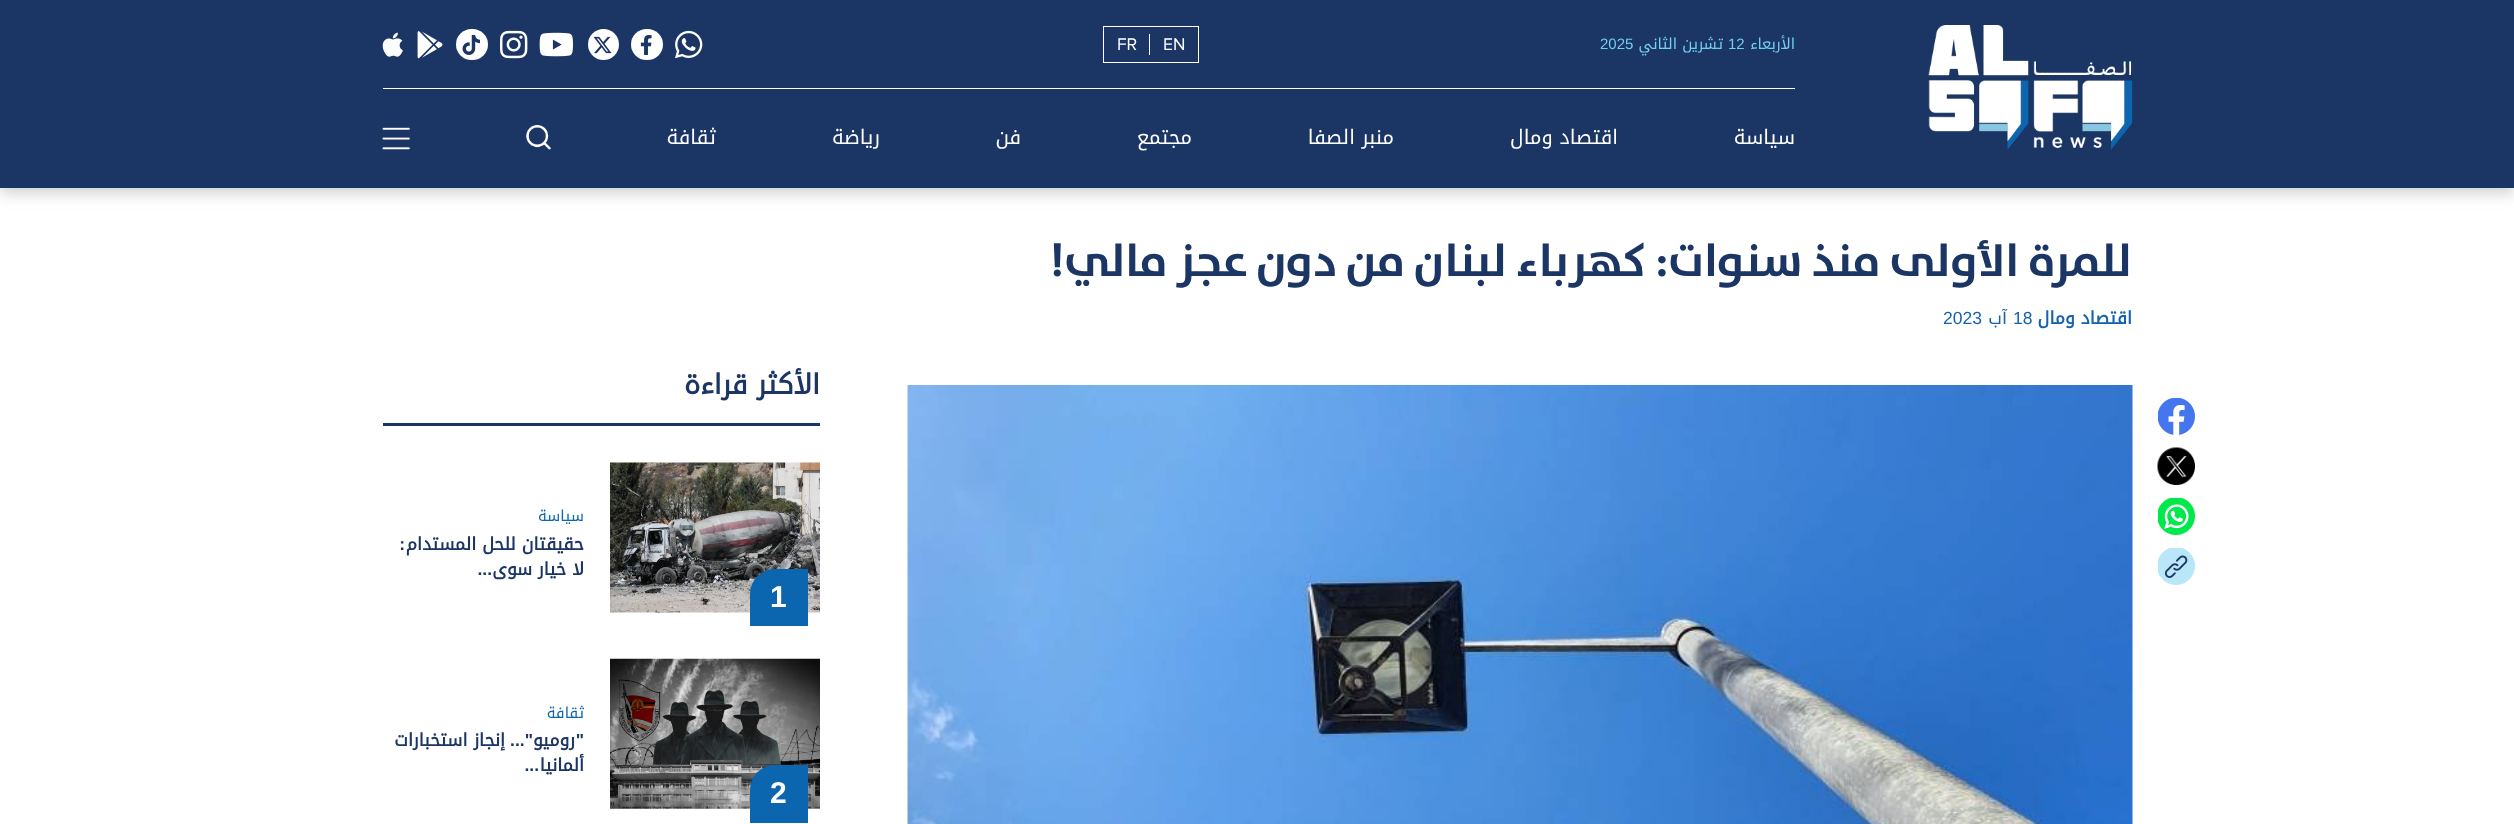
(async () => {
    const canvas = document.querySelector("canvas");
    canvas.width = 2514;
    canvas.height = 824;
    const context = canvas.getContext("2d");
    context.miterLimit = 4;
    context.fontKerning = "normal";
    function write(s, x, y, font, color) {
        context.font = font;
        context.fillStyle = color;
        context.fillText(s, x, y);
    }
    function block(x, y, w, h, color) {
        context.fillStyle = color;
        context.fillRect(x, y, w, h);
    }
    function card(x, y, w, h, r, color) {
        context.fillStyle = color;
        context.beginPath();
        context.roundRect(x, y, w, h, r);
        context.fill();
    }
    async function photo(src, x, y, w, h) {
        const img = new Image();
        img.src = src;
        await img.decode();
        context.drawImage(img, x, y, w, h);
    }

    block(0, 0, 2514, 824, "rgb(255, 255, 255)");
    context.fillStyle = "rgb(206, 206, 206)";
    context.filter = "blur(7.5px)";
    context.beginPath();
    context.rect(0, 5, 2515, 188);
    context.fill();
    context.filter = "none";
    block(0, 0, 2514, 188, "rgb(27, 54, 100)");
    await photo("media/1.png", 1928, 25, 205, 125);
    block(383, 88, 1412, 1, "rgb(255, 255, 255)");
    context.direction = "rtl";
    write("الأربعاء", 1795, 49, "15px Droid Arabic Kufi", "rgb(114, 206, 242)");
    context.direction = "ltr";
    write("12", 1728, 49, "15px Liberation Sans", "rgb(114, 206, 242)");
    context.direction = "rtl";
    write("تشرين الثاني", 1723, 49, "15px Droid Arabic Kufi", "rgb(114, 206, 242)");
    context.direction = "ltr";
    write("2025", 1600, 49, "15px Liberation Sans", "rgb(114, 206, 242)");
    context.strokeStyle = "rgb(255, 255, 255)";
    context.strokeRect(1103.5, 26.5, 95, 36);
    write("EN", 1163, 50, "17.5px Proxima Nova", "rgb(255, 255, 255)");
    block(1149, 34, 1, 21, "rgb(255, 255, 255)");
    write("FR", 1117, 50, "17.5px Proxima Nova", "rgb(255, 255, 255)");
    await photo("media/2.png", 675, 30, 28, 29);
    card(631, 29, 32, 31, 15.5, "rgb(255, 255, 255)");
    await photo("media/3.png", 640, 35, 12, 20);
    context.beginPath();
    context.arc(603.5, 44.5, 15.5, 0, Math.PI * 2);
    context.fill();
    await photo("media/4.png", 593, 36, 19, 18);
    await photo("media/5.png", 539, 32, 34, 25);
    await photo("media/6.png", 500, 30, 28, 29);
    card(456, 29, 32, 31, 15.5, "rgb(255, 255, 255)");
    await photo("media/7.png", 462, 35, 18, 20);
    await photo("media/8.png", 417, 31, 26, 28);
    await photo("media/9.png", 382, 32, 21, 25);
    context.direction = "rtl";
    write("سياسة", 1795, 144, "20px Droid Arabic Kufi", "rgb(255, 255, 255)");
    write("اقتصاد ومال", 1618, 144, "20px Droid Arabic Kufi", "rgb(255, 255, 255)");
    write("منبر الصفا", 1394, 144, "20px Droid Arabic Kufi", "rgb(255, 255, 255)");
    write("مجتمع", 1192, 144, "20px Droid Arabic Kufi", "rgb(255, 255, 255)");
    write("فن", 1021, 144, "20px Droid Arabic Kufi", "rgb(255, 255, 255)");
    write("رياضة", 880, 144, "20px Droid Arabic Kufi", "rgb(255, 255, 255)");
    write("ثقافة", 716, 144, "20px Droid Arabic Kufi", "rgb(255, 255, 255)");
    await photo("media/10.png", 526, 125, 25, 25);
    await photo("media/11.png", 382, 127, 28, 23);
    write("للمرة الأولى منذ سنوات: كهرباء لبنان من دون عجز مالي!", 2132, 276, "bold 46.25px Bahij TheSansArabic", "rgb(27, 54, 100)");
    write("اقتصاد ومال", 2132, 324, "bold 17.5px Droid Arabic Kufi", "rgb(19, 97, 175)");
    context.direction = "ltr";
    write("18", 2013, 324, "17.5px Liberation Sans", "rgb(19, 97, 175)");
    context.direction = "rtl";
    write("آب", 2007, 324, "17.5px Droid Arabic Kufi", "rgb(19, 97, 175)");
    context.direction = "ltr";
    write("2023", 1943, 324, "17.5px Liberation Sans", "rgb(19, 97, 175)");
    await photo("media/12.png", 2158, 398, 37, 37);
    await photo("media/13.png", 2157, 447, 38, 38);
    await photo("media/14.png", 2158, 498, 37, 37);
    await photo("media/15.png", 2158, 548, 37, 37);
    await photo("media/16.png", 907, 385, 1226, 439);
    block(383, 423, 437, 3, "rgb(27, 54, 100)");
    context.direction = "rtl";
    write("الأكثر قراءة", 820, 394, "bold 27.5px Droid Arabic Kufi", "rgb(27, 54, 100)");
    write("سياسة", 584, 521, "15px Droid Arabic Kufi", "rgb(12, 101, 175)");
    write("حقيقتان للحل المستدام", 584, 550, "bold 17.5px Droid Arabic Kufi", "rgb(27, 54, 100)");
    write(":", 405, 550, "bold 17.5px Liberation Sans", "rgb(27, 54, 100)");
    write("لا خيار سوى", 584, 575, "bold 17.5px Droid Arabic Kufi", "rgb(27, 54, 100)");
    write("...", 492, 575, "bold 17.5px Liberation Sans", "rgb(27, 54, 100)");
    await photo("media/17.png", 610, 462, 210, 151);
    context.fillStyle = "rgb(12, 101, 175)";
    context.beginPath();
    context.roundRect(750, 569, 58, 57, [25, 0, 0, 0]);
    context.fill();
    context.direction = "ltr";
    write("1", 770, 607, "bold 30px Liberation Sans", "rgb(255, 255, 255)");
    context.direction = "rtl";
    write("ثقافة", 584, 718, "15px Droid Arabic Kufi", "rgb(12, 101, 175)");
    write("\"", 584, 746, "bold 17.5px Liberation Sans", "rgb(27, 54, 100)");
    write("\"...", 533, 746, "bold 17.5px Liberation Sans", "rgb(27, 54, 100)");
    write("إنجاز استخبارات", 505, 746, "bold 17.5px Droid Arabic Kufi", "rgb(27, 54, 100)");
    write("روميو", 575, 746, "bold 17.5px Droid Arabic Kufi", "rgb(27, 54, 100)");
    write("ألمانيا", 584, 771, "bold 17.5px Droid Arabic Kufi", "rgb(27, 54, 100)");
    write("...", 539, 771, "bold 17.5px Liberation Sans", "rgb(27, 54, 100)");
    await photo("media/18.png", 610, 658, 210, 151);
    context.fillStyle = "rgb(12, 101, 175)";
    context.beginPath();
    context.roundRect(750, 765, 58, 58, [25, 0, 0, 0]);
    context.fill();
    context.direction = "ltr";
    write("2", 770, 803, "bold 30px Liberation Sans", "rgb(255, 255, 255)");
})();
